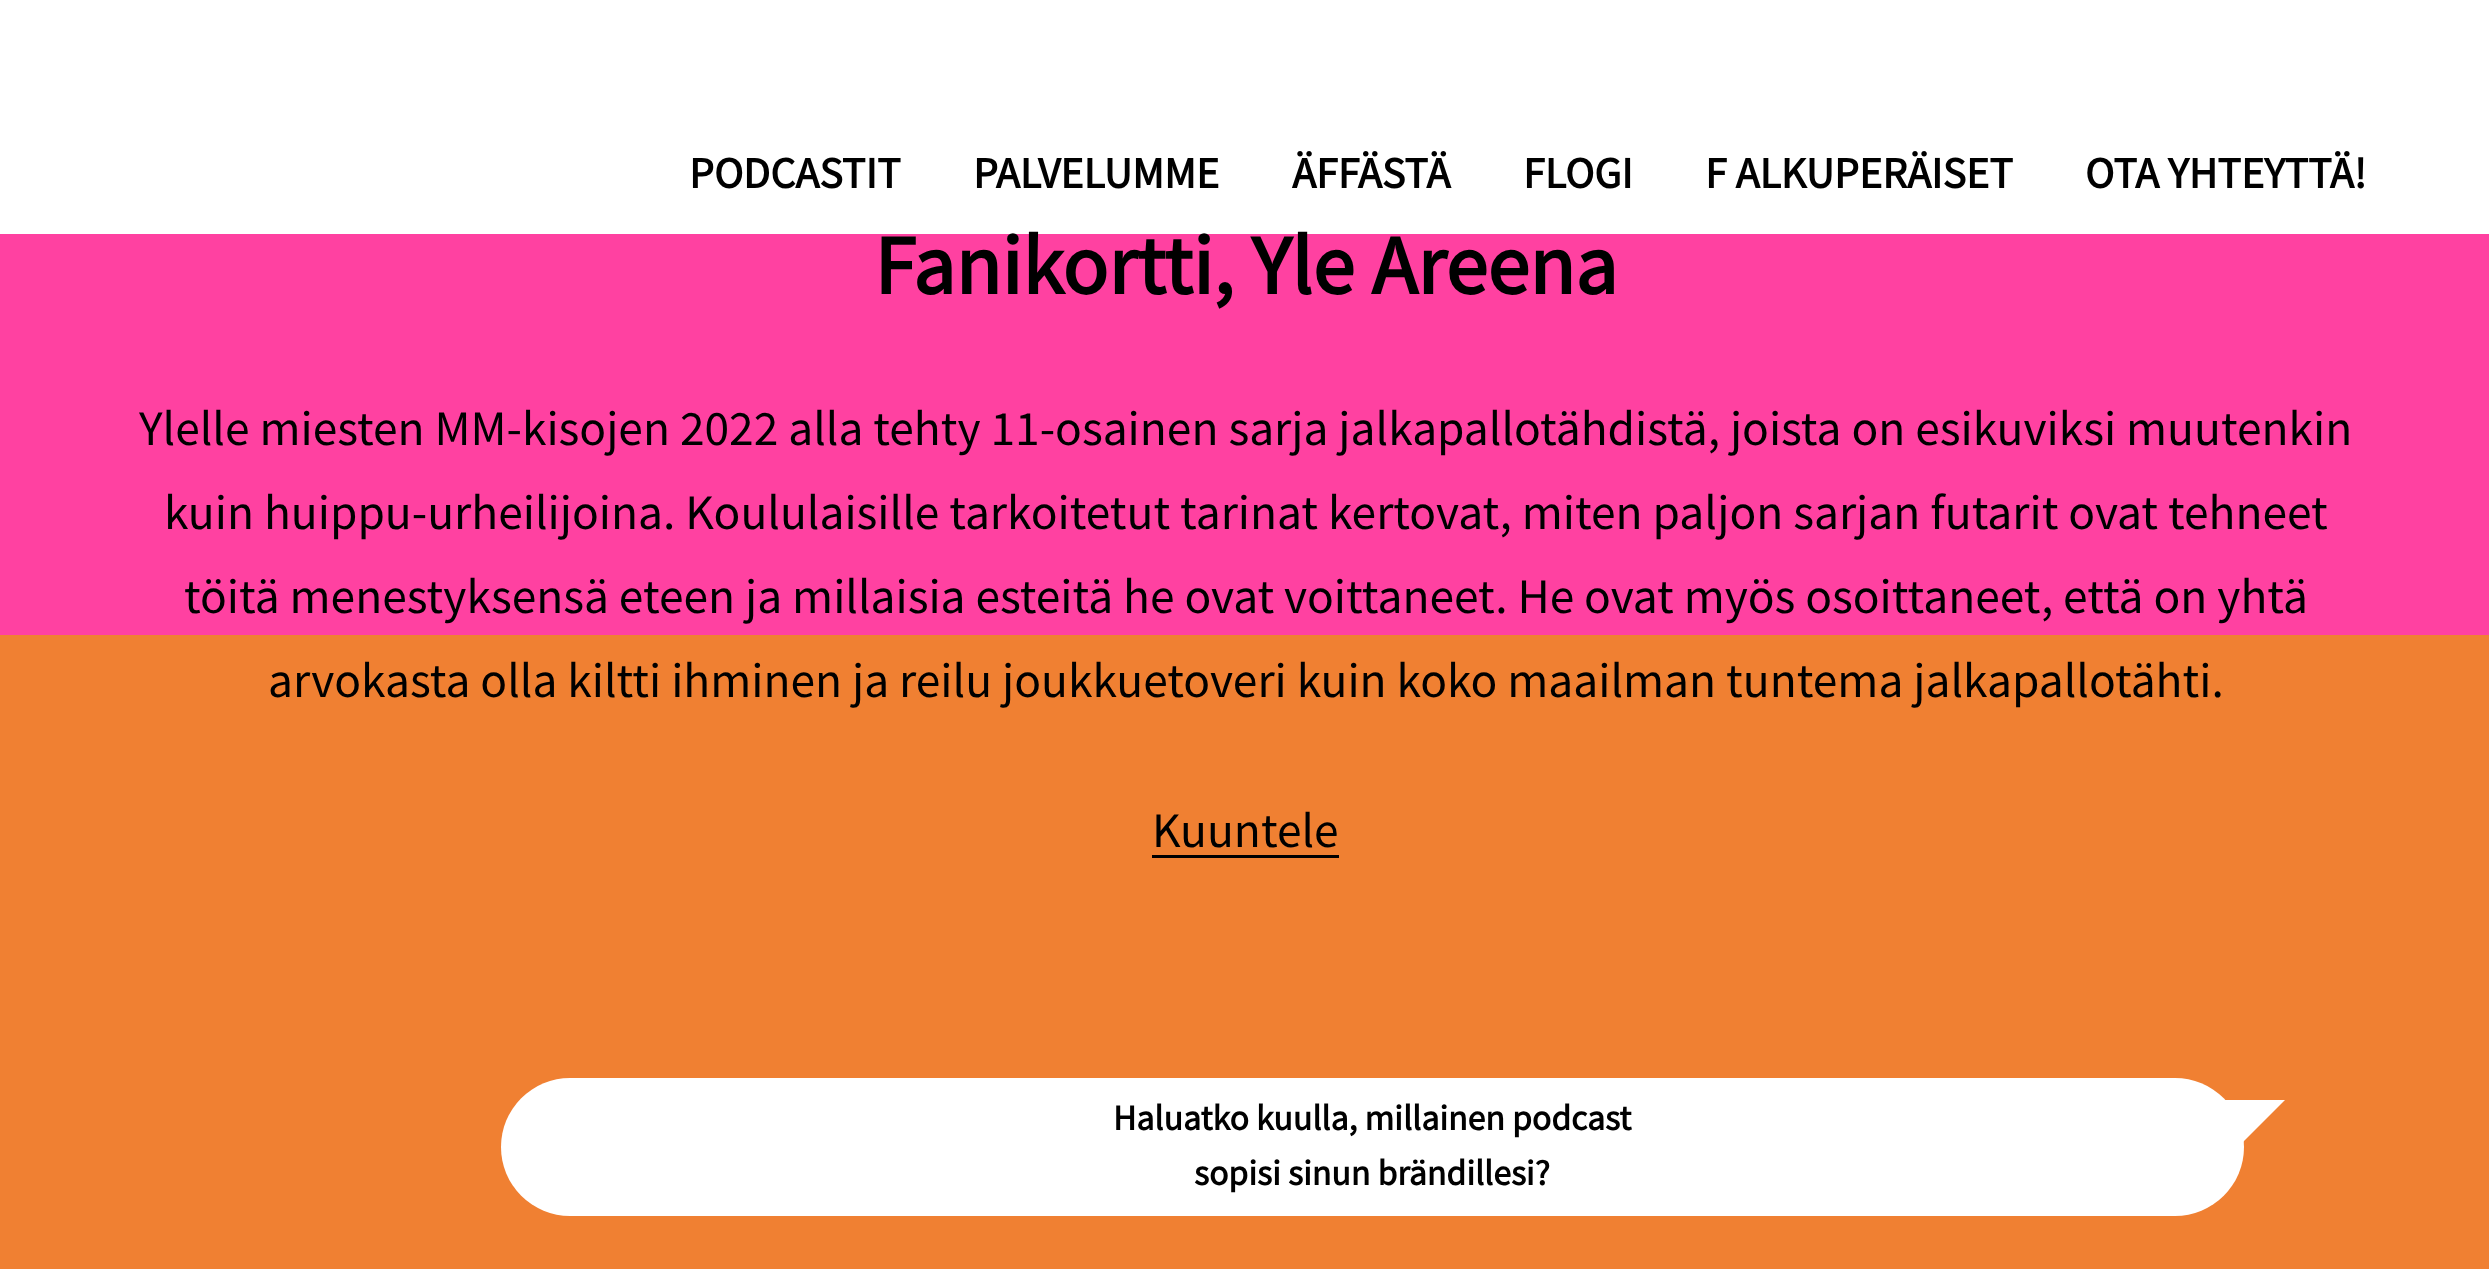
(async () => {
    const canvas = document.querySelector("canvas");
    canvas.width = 2489;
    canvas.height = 1269;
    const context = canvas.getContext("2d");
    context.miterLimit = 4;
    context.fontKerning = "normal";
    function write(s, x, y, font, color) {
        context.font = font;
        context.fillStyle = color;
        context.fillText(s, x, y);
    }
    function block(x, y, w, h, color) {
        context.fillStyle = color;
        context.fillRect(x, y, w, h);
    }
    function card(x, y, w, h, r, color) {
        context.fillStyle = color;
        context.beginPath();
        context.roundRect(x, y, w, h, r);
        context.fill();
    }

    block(0, 0, 2489, 1269, "rgb(255, 65, 161)");
    block(0, 0, 2489, 234, "rgb(255, 255, 255)");
    write("PODCASTIT", 689, 188, "bold 44px Source Sans Pro", "rgb(0, 0, 0)");
    write("PALVELUMME", 973, 188, "bold 44px Source Sans Pro", "rgb(0, 0, 0)");
    write("ÄFFÄSTÄ", 1292, 188, "bold 44px Source Sans Pro", "rgb(0, 0, 0)");
    write("FLOGI", 1523, 188, "bold 44px Source Sans Pro", "rgb(0, 0, 0)");
    write("F ALKUPERÄISET", 1705, 188, "bold 44px Source Sans Pro", "rgb(0, 0, 0)");
    write("OTA YHTEYTTÄ!", 2085, 188, "bold 44px Source Sans Pro", "rgb(0, 0, 0)");
    write("Fanikortti, Yle Areena", 874, 294, "bold 84.25px Source Sans Pro", "rgb(0, 0, 0)");
    write("Ylelle miesten MM-kisojen 2022 alla tehty 11-osainen sarja jalkapallotähdistä, joista on esikuviksi muutenkin", 139, 445, "49.5px Source Sans Pro", "rgb(0, 0, 0)");
    write("kuin huippu-urheilijoina. Koululaisille tarkoitetut tarinat kertovat, miten paljon sarjan futarit ovat tehneet", 164, 529, "49.5px Source Sans Pro", "rgb(0, 0, 0)");
    write("töitä menestyksensä eteen ja millaisia esteitä he ovat voittaneet. He ovat myös osoittaneet, että on yhtä", 184, 613, "49.5px Source Sans Pro", "rgb(0, 0, 0)");
    block(0, 635, 2489, 634, "rgb(240, 128, 50)");
    write("arvokasta olla kiltti ihminen ja reilu joukkuetoveri kuin koko maailman tuntema jalkapallotähti.", 268, 697, "49.5px Source Sans Pro", "rgb(0, 0, 0)");
    write("Kuuntele", 1152, 847, "49.5px Source Sans Pro", "rgb(0, 0, 0)");
    block(1152, 855, 187, 3, "rgb(0, 0, 0)");
    card(501, 1078, 1743, 138, 69, "rgb(255, 255, 255)");
    write("Haluatko kuulla, millainen podcast", 1113, 1130, "bold 35.75px Source Sans Pro", "rgb(0, 0, 0)");
    context.fillStyle = "rgb(255, 255, 255)";
    context.beginPath();
    context.moveTo(2189, 1196);
    context.lineTo(2189, 1100);
    context.lineTo(2285, 1100);
    context.closePath();
    context.fill();
    write("sopisi sinun brändillesi?", 1194, 1185, "bold 35.75px Source Sans Pro", "rgb(0, 0, 0)");
})();
